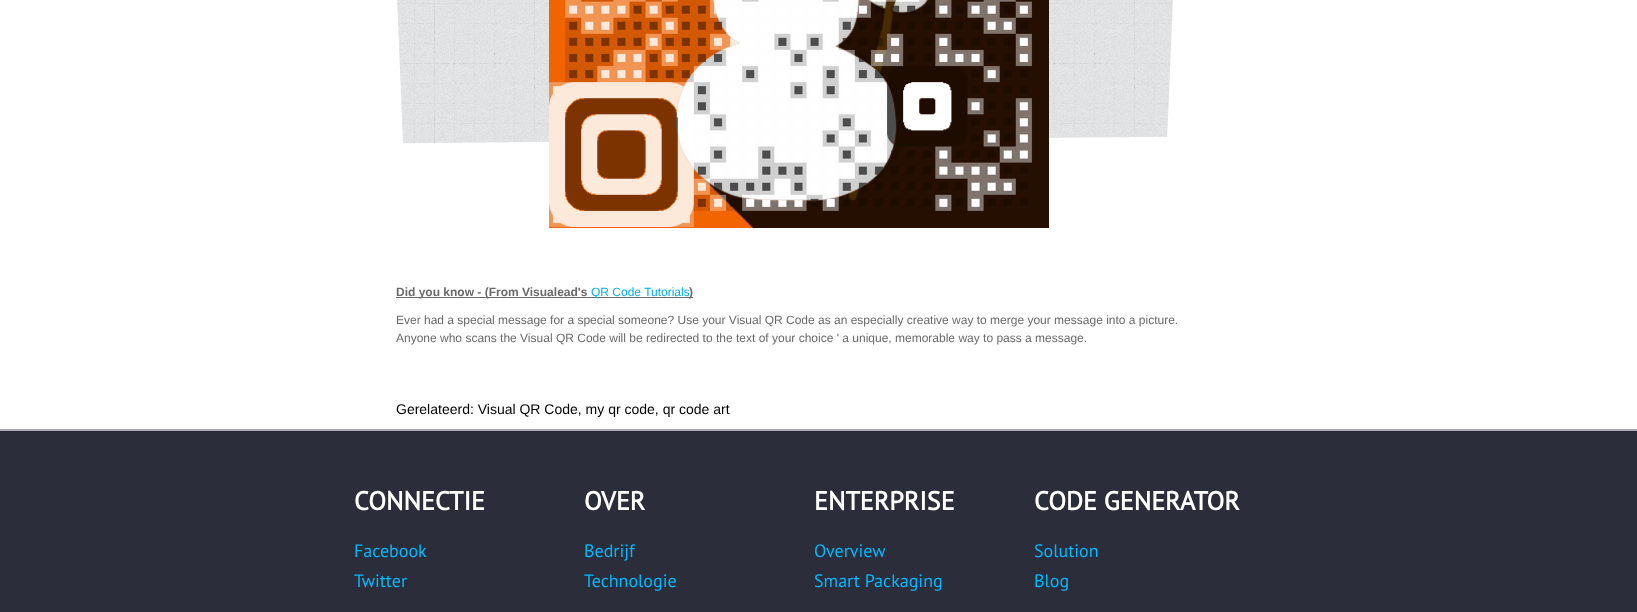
(async () => {
    const canvas = document.querySelector("canvas");
    canvas.width = 1637;
    canvas.height = 612;
    const context = canvas.getContext("2d");
    context.miterLimit = 4;
    context.fontKerning = "normal";
    function write(s, x, y, font, color) {
        context.font = font;
        context.fillStyle = color;
        context.fillText(s, x, y);
    }
    function block(x, y, w, h, color) {
        context.fillStyle = color;
        context.fillRect(x, y, w, h);
    }
    async function photo(src, x, y, w, h) {
        const img = new Image();
        img.src = src;
        await img.decode();
        context.drawImage(img, x, y, w, h);
    }

    block(0, 0, 1637, 612, "rgb(255, 255, 255)");
    await photo("media/1.png", 397, 0, 776, 144);
    await photo("media/2.png", 549, 0, 500, 228);
    block(396, 297, 297, 1, "rgb(106, 106, 106)");
    write("Did you know - (From Visualead's", 396, 296, "bold 12px Liberation Sans", "rgb(106, 106, 106)");
    write("QR Code Tutorials", 591, 296, "12px Liberation Sans", "rgb(0, 173, 238)");
    write(")", 689, 296, "bold 12px Liberation Sans", "rgb(106, 106, 106)");
    write("Ever had a special message for a special someone? Use your Visual QR Code as an especially creative way to merge your message into a picture.", 396, 324, "12px Liberation Sans", "rgb(106, 106, 106)");
    write("Anyone who scans the Visual QR Code will be redirected to the text of your choice ' a unique, memorable way to pass a message.", 396, 342, "12px Liberation Sans", "rgb(106, 106, 106)");
    write("Gerelateerd: Visual QR Code, my qr code, qr code art", 396, 414, "14px Liberation Sans", "rgb(0, 0, 0)");
    block(0, 431, 1637, 181, "rgb(44, 45, 58)");
    block(0, 429, 1637, 2, "rgb(171, 171, 176)");
    write("CONNECTIE", 354, 510, "bold 26px PT Sans", "rgb(255, 255, 255)");
    write("Facebook", 354, 557, "18px PT Sans", "rgb(0, 185, 255)");
    write("Twitter", 354, 587, "18px PT Sans", "rgb(0, 185, 255)");
    write("OVER", 584, 510, "bold 26px PT Sans", "rgb(255, 255, 255)");
    write("Bedrijf", 584, 557, "18px PT Sans", "rgb(0, 185, 255)");
    write("Technologie", 584, 587, "18px PT Sans", "rgb(0, 185, 255)");
    write("ENTERPRISE", 814, 510, "bold 26px PT Sans", "rgb(255, 255, 255)");
    write("Overview", 814, 557, "18px PT Sans", "rgb(0, 185, 255)");
    write("Smart Packaging", 814, 587, "18px PT Sans", "rgb(0, 185, 255)");
    write("CODE GENERATOR", 1034, 510, "bold 26px PT Sans", "rgb(255, 255, 255)");
    write("Solution", 1034, 557, "18px PT Sans", "rgb(0, 185, 255)");
    write("Blog", 1034, 587, "18px PT Sans", "rgb(0, 185, 255)");
})();
